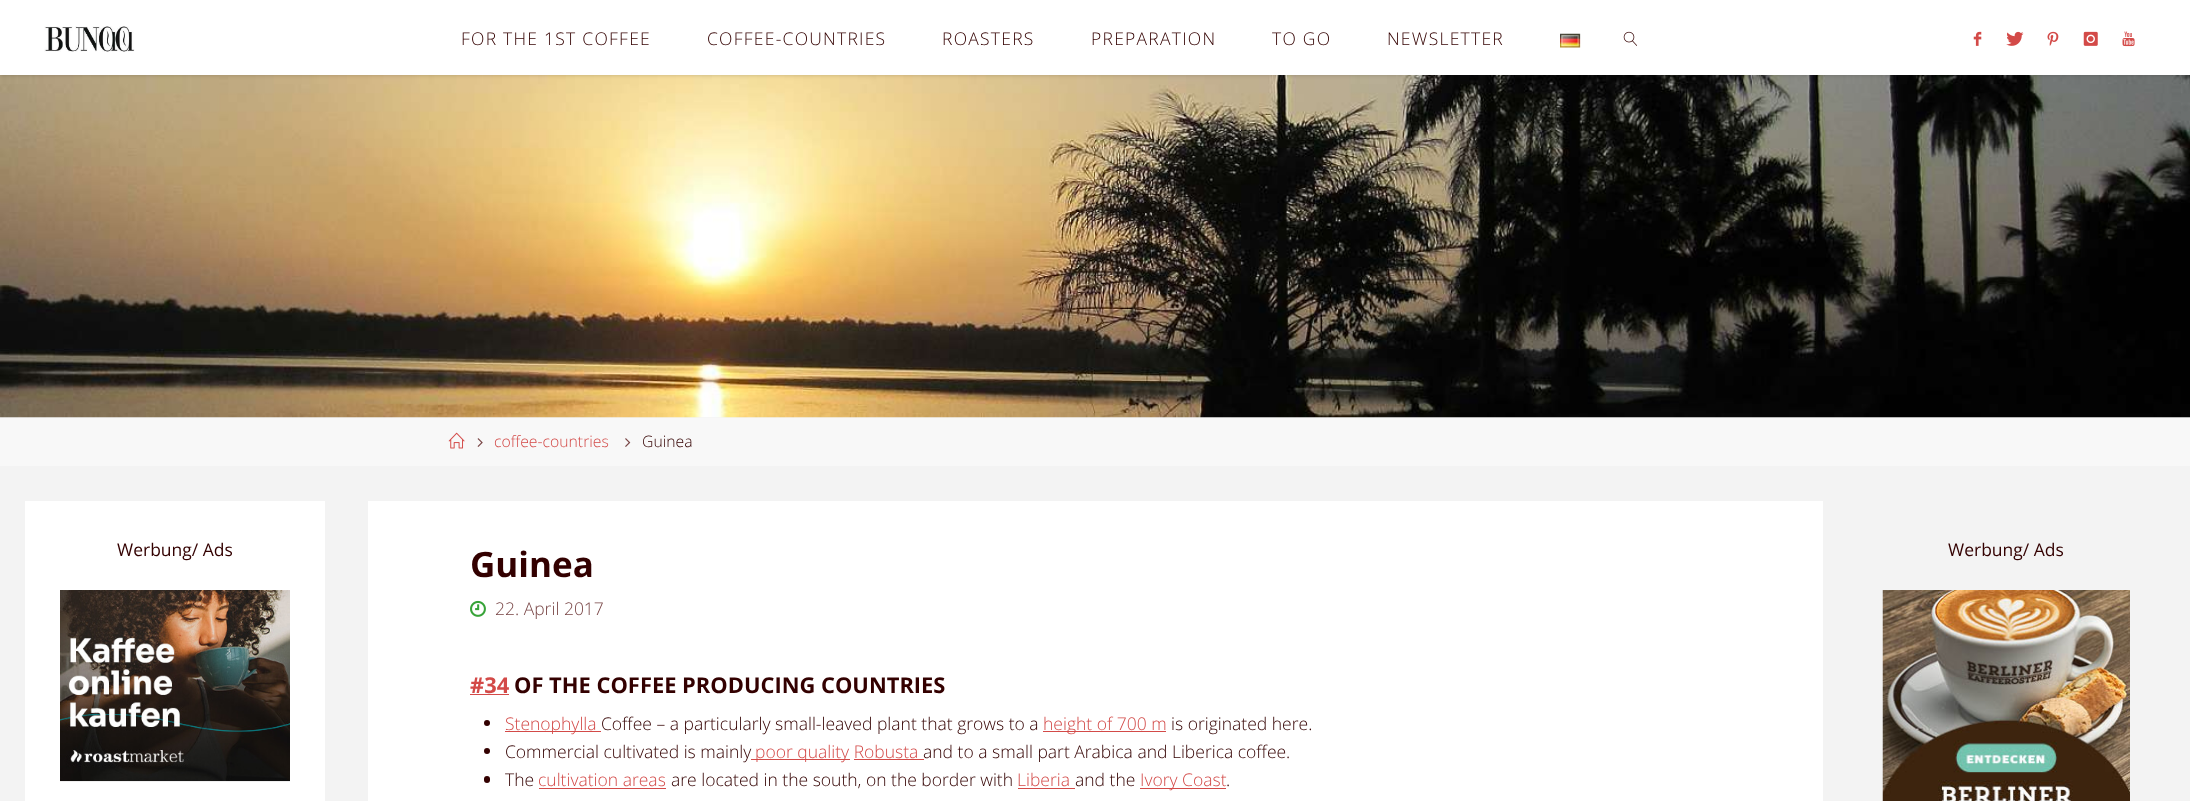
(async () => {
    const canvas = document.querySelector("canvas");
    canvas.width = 2190;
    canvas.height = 801;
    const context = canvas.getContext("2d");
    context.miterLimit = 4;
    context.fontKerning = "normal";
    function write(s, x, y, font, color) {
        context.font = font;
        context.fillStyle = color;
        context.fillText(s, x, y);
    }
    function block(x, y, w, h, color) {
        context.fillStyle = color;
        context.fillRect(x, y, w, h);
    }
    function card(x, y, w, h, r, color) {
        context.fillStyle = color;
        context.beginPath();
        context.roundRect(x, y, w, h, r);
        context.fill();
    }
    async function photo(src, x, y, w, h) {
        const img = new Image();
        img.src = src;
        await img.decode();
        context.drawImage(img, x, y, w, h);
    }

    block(0, 0, 2190, 801, "rgb(243, 243, 243)");
    await photo("media/9.png", 0, 75, 2190, 343);
    context.fillStyle = "rgba(0, 0, 0, 0.2)";
    context.filter = "blur(2px)";
    context.beginPath();
    context.rect(0, 0, 2190, 75);
    context.fill();
    context.filter = "none";
    block(0, 0, 2190, 75, "rgb(255, 255, 255)");
    await photo("media/1.png", 44, 26, 91, 26);
    context.letterSpacing = "1.25px";
    write("FOR THE 1ST COFFEE", 461, 45, "300 17.5px Open Sans", "rgb(51, 0, 0)");
    write("COFFEE-COUNTRIES", 707, 45, "300 17.5px Open Sans", "rgb(51, 0, 0)");
    write("ROASTERS", 942, 45, "300 17.5px Open Sans", "rgb(51, 0, 0)");
    write("PREPARATION", 1091, 45, "300 17.5px Open Sans", "rgb(51, 0, 0)");
    write("TO GO", 1272, 45, "300 17.5px Open Sans", "rgb(51, 0, 0)");
    write("NEWSLETTER", 1387, 45, "300 17.5px Open Sans", "rgb(51, 0, 0)");
    await photo("media/2.png", 1560, 33, 21, 15);
    await photo("media/3.png", 1623, 31, 14, 15);
    await photo("media/4.png", 1973, 31, 9, 15);
    await photo("media/5.png", 2006, 31, 18, 15);
    await photo("media/6.png", 2047, 31, 12, 15);
    await photo("media/7.png", 2083, 31, 15, 15);
    await photo("media/8.png", 2122, 31, 13, 16);
    block(0, 418, 2190, 48, "rgb(248, 248, 248)");
    await photo("media/10.png", 448, 432, 17, 17);
    await photo("media/11.png", 477, 438, 6, 9);
    context.letterSpacing = "0px";
    write("coffee-countries", 494, 447, "300 15.75px Open Sans", "rgb(211, 74, 72)");
    await photo("media/12.png", 625, 438, 6, 9);
    write("Guinea", 642, 447, "300 15.75px Open Sans", "rgb(51, 0, 0)");
    block(25, 501, 300, 300, "rgb(255, 255, 255)");
    write("Werbung/ Ads", 117, 556, "17.5px Open Sans", "rgb(51, 0, 0)");
    await photo("media/13.png", 60, 590, 230, 192);
    block(368, 501, 1455, 300, "rgb(255, 255, 255)");
    write("Guinea", 470, 577, "bold 35px Open Sans", "rgb(51, 0, 0)");
    await photo("media/14.png", 470, 600, 16, 17);
    write("22. April 2017", 495, 615, "300 17.5px Open Sans", "rgb(120, 69, 69)");
    write("#34", 470, 693, "bold 21.9px Open Sans", "rgb(211, 74, 72)");
    block(470, 694, 39, 1, "rgb(211, 74, 72)");
    write("OF THE COFFEE PRODUCING COUNTRIES", 514, 693, "bold 21.9px Open Sans", "rgb(51, 0, 0)");
    context.beginPath();
    context.arc(487, 723, 3, 0, Math.PI * 2);
    context.fill();
    block(505, 731, 96, 1, "rgb(211, 74, 72)");
    write("Stenophylla", 505, 730, "300 17.5px Open Sans", "rgb(211, 74, 72)");
    write("Coffee – a particularly small-leaved plant that grows to a", 601, 730, "300 17.5px Open Sans", "rgb(51, 0, 0)");
    block(1043, 731, 123, 1, "rgb(211, 74, 72)");
    write("height of 700 m", 1043, 730, "300 17.5px Open Sans", "rgb(211, 74, 72)");
    write("is originated here.", 1171, 730, "300 17.5px Open Sans", "rgb(51, 0, 0)");
    context.beginPath();
    context.arc(487, 751, 3, 0, Math.PI * 2);
    context.fill();
    write("Commercial cultivated is mainly", 505, 758, "300 17.5px Open Sans", "rgb(51, 0, 0)");
    block(751, 759, 99, 1, "rgb(211, 74, 72)");
    write("poor quality Robusta", 755, 758, "300 17.5px Open Sans", "rgb(211, 74, 72)");
    block(854, 759, 70, 1, "rgb(211, 74, 72)");
    write("and to a small part Arabica and Liberica coffee.", 923, 758, "300 17.5px Open Sans", "rgb(51, 0, 0)");
    card(484, 776, 6, 7, 3, "rgb(51, 0, 0)");
    write("The", 505, 786, "300 17.5px Open Sans", "rgb(51, 0, 0)");
    write("cultivation areas", 538, 786, "300 17.5px Open Sans", "rgb(211, 74, 72)");
    block(539, 788, 127, 1, "rgb(211, 74, 72)");
    write("are located in the south, on the border with", 671, 786, "300 17.5px Open Sans", "rgb(51, 0, 0)");
    write("Liberia", 1017, 786, "300 17.5px Open Sans", "rgb(211, 74, 72)");
    block(1018, 788, 57, 1, "rgb(211, 74, 72)");
    write("and the", 1075, 786, "300 17.5px Open Sans", "rgb(51, 0, 0)");
    block(1140, 788, 86, 1, "rgb(211, 74, 72)");
    write("Ivory Coast", 1140, 786, "300 17.5px Open Sans", "rgb(211, 74, 72)");
    write(".", 1226, 786, "300 17.5px Open Sans", "rgb(51, 0, 0)");
    write("Werbung/ Ads", 1948, 556, "17.5px Open Sans", "rgb(51, 0, 0)");
    await photo("media/15.png", 1882, 590, 248, 211);
})();
